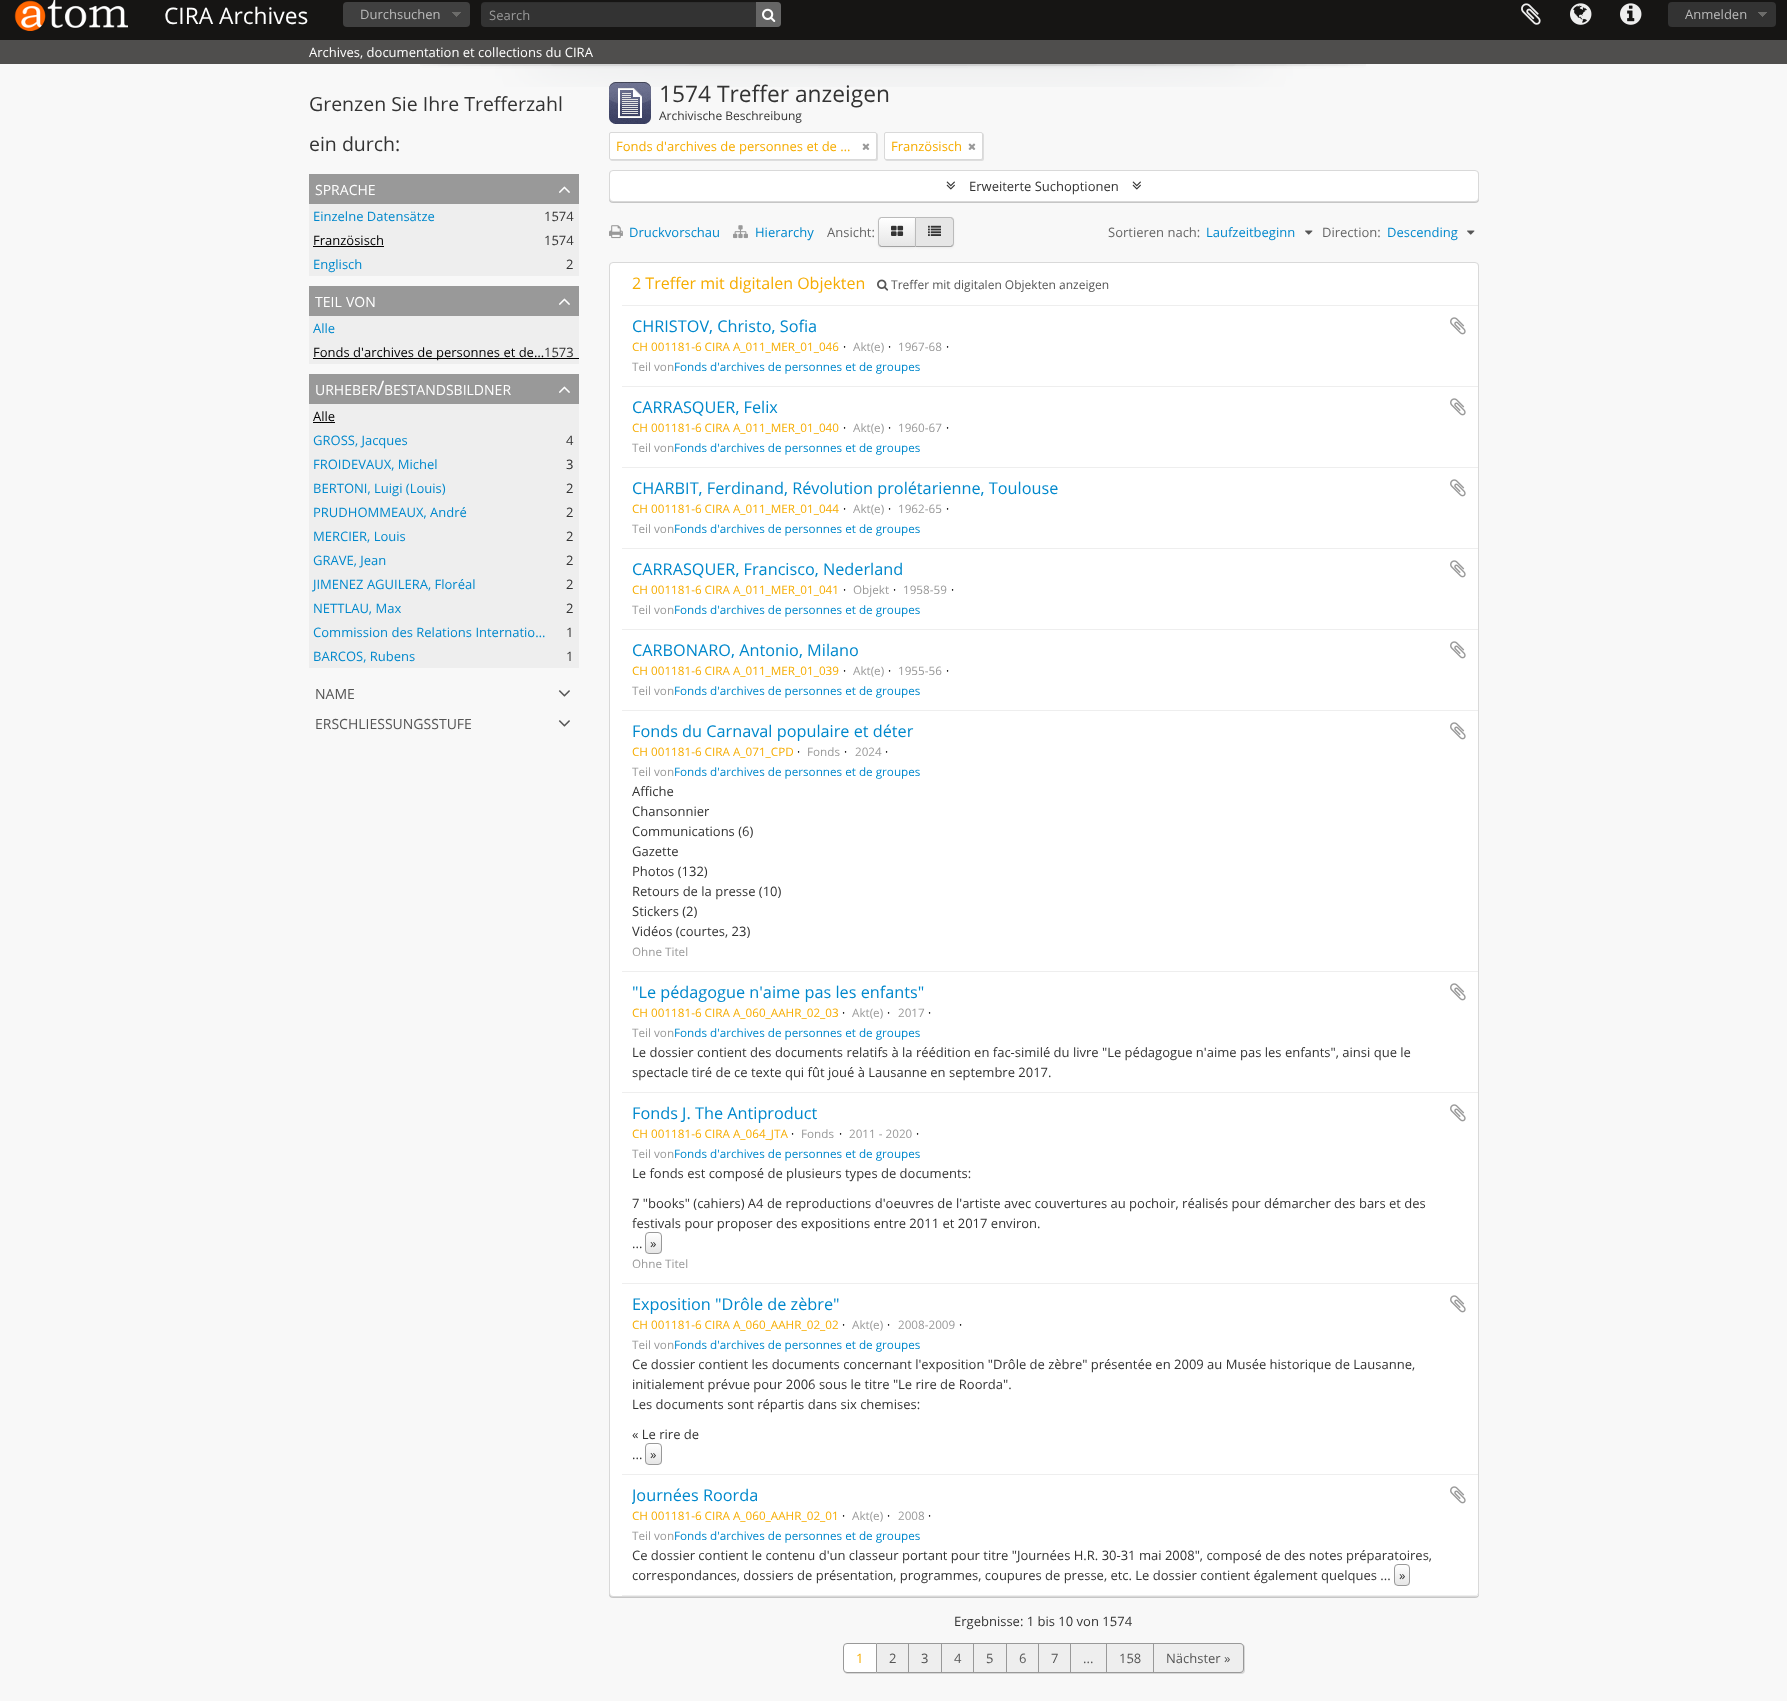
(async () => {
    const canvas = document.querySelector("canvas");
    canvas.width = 1787;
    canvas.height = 1701;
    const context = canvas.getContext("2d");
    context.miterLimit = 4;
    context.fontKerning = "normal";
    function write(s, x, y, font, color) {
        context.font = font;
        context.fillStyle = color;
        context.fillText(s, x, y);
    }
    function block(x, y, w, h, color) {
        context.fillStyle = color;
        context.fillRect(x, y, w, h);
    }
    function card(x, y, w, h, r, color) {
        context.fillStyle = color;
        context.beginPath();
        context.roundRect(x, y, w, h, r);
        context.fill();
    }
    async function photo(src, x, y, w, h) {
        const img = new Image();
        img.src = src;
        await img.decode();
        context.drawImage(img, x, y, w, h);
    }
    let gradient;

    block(0, 0, 1787, 1701, "rgb(248, 248, 248)");
    block(0, 0, 1787, 40, "rgb(22, 21, 20)");
    await photo("media/1.png", 14, 0, 114, 31);
    write("CIRA Archives", 164, 24, "22.75px Open Sans", "rgb(255, 255, 255)");
    card(343, 2, 127, 25, 4, "rgb(64, 64, 64)");
    await photo("media/2.png", 452, 12, 9, 5);
    write("Durchsuchen", 360, 19, "13px Open Sans", "rgb(187, 187, 187)");
    card(481, 2, 300, 25, 4, "rgb(51, 51, 51)");
    context.fillStyle = "rgba(0, 0, 0, 0.07)";
    context.beginPath();
    context.moveTo(485, 3);
    context.lineTo(779, 3);
    context.bezierCurveTo(780, 3, 781, 4, 781, 6);
    context.bezierCurveTo(781, 4, 779, 2, 777, 2);
    context.lineTo(485, 2);
    context.bezierCurveTo(482, 2, 481, 4, 481, 6);
    context.bezierCurveTo(481, 4, 483, 3, 485, 3);
    context.closePath();
    context.fill();
    write("Search", 489, 20, "13px Open Sans", "rgb(153, 153, 153)");
    context.fillStyle = "rgb(102, 102, 102)";
    context.beginPath();
    context.roundRect(756, 2, 25, 25, [0, 4, 4, 0]);
    context.fill();
    await photo("media/3.png", 762, 8, 14, 14);
    await photo("media/4.png", 1521, 3, 20, 22);
    await photo("media/5.png", 1570, 3, 22, 22);
    await photo("media/6.png", 1620, 3, 22, 22);
    card(1668, 2, 108, 25, 4, "rgb(51, 51, 51)");
    await photo("media/7.png", 1758, 12, 9, 5);
    write("Anmelden", 1685, 19, "13px Open Sans", "rgb(187, 187, 187)");
    block(0, 40, 1787, 24, "rgb(79, 78, 77)");
    write("Archives, documentation et collections du CIRA", 309, 57, "13px Open Sans", "rgb(255, 255, 255)");
    await photo("media/8.png", 420, 64, 946, 23);
    write("Grenzen Sie Ihre Trefferzahl", 309, 111, "19.5px Open Sans", "rgb(51, 51, 51)");
    write("ein durch:", 309, 151, "19.5px Open Sans", "rgb(51, 51, 51)");
    block(309, 174, 270, 30, "rgb(153, 153, 153)");
    write("SPRACHE", 315, 195, "14px Open Sans", "rgb(255, 255, 255)");
    await photo("media/9.png", 559, 186, 11, 7);
    block(309, 204, 270, 72, "rgb(238, 238, 238)");
    write("Einzelne Datensätze", 313, 221, "13px Open Sans", "rgb(0, 136, 204)");
    write("1574", 544, 221, "13px Open Sans", "rgb(51, 51, 51)");
    write("Französisch", 313, 245, "13px Open Sans", "rgb(0, 0, 0)");
    block(313, 246, 71, 1, "rgb(0, 0, 0)");
    write("1574", 544, 245, "13px Open Sans", "rgb(51, 51, 51)");
    write("Englisch", 313, 269, "13px Open Sans", "rgb(0, 136, 204)");
    write("2", 566, 269, "13px Open Sans", "rgb(51, 51, 51)");
    block(309, 286, 270, 30, "rgb(153, 153, 153)");
    write("TEIL", 315, 307, "14px Open Sans", "rgb(255, 255, 255)");
    write("VON", 346, 307, "14px Open Sans", "rgb(255, 255, 255)");
    await photo("media/9.png", 559, 298, 11, 7);
    block(309, 316, 270, 48, "rgb(238, 238, 238)");
    write("Alle", 313, 333, "13px Open Sans", "rgb(0, 136, 204)");
    block(313, 358, 266, 1, "rgb(0, 0, 0)");
    write("Fonds d'archives de personnes et de…", 313, 357, "13px Open Sans", "rgb(0, 0, 0)");
    write("1573", 544, 357, "13px Open Sans", "rgb(51, 51, 51)");
    block(309, 374, 270, 30, "rgb(153, 153, 153)");
    write("URHEBER", 315, 395, "14px Open Sans", "rgb(255, 255, 255)");
    write("/", 377, 395, "20px Open Sans", "rgb(255, 255, 255)");
    write("BESTANDSBILDNER", 384, 395, "14px Open Sans", "rgb(255, 255, 255)");
    await photo("media/9.png", 559, 386, 11, 7);
    block(309, 404, 270, 264, "rgb(238, 238, 238)");
    write("Alle", 313, 421, "13px Open Sans", "rgb(0, 0, 0)");
    block(313, 422, 22, 1, "rgb(0, 0, 0)");
    write("GROSS, Jacques", 313, 445, "13px Open Sans", "rgb(0, 136, 204)");
    write("4", 566, 445, "13px Open Sans", "rgb(51, 51, 51)");
    write("FROIDEVAUX, Michel", 313, 469, "13px Open Sans", "rgb(0, 136, 204)");
    write("3", 566, 469, "13px Open Sans", "rgb(51, 51, 51)");
    write("BERTONI, Luigi (Louis)", 313, 493, "13px Open Sans", "rgb(0, 136, 204)");
    write("2", 566, 493, "13px Open Sans", "rgb(51, 51, 51)");
    write("PRUDHOMMEAUX, André", 313, 517, "13px Open Sans", "rgb(0, 136, 204)");
    write("2", 566, 517, "13px Open Sans", "rgb(51, 51, 51)");
    write("MERCIER, Louis", 313, 541, "13px Open Sans", "rgb(0, 136, 204)");
    write("2", 566, 541, "13px Open Sans", "rgb(51, 51, 51)");
    write("GRAVE, Jean", 313, 565, "13px Open Sans", "rgb(0, 136, 204)");
    write("2", 566, 565, "13px Open Sans", "rgb(51, 51, 51)");
    write("JIMENEZ AGUILERA, Floréal", 313, 589, "13px Open Sans", "rgb(0, 136, 204)");
    write("2", 566, 589, "13px Open Sans", "rgb(51, 51, 51)");
    write("NETTLAU, Max", 313, 613, "13px Open Sans", "rgb(0, 136, 204)");
    write("2", 566, 613, "13px Open Sans", "rgb(51, 51, 51)");
    write("Commission des Relations Internatio…", 313, 637, "13px Open Sans", "rgb(0, 136, 204)");
    write("1", 566, 637, "13px Open Sans", "rgb(51, 51, 51)");
    write("BARCOS, Rubens", 313, 661, "13px Open Sans", "rgb(0, 136, 204)");
    write("1", 566, 661, "13px Open Sans", "rgb(51, 51, 51)");
    write("NAME", 315, 699, "14px Open Sans", "rgb(85, 85, 85)");
    await photo("media/10.png", 558, 690, 12, 7);
    write("ERSCHLIESSUNGSSTUFE", 315, 729, "14px Open Sans", "rgb(85, 85, 85)");
    await photo("media/10.png", 558, 720, 12, 7);
    await photo("media/11.png", 609, 82, 42, 42);
    write("1574 Treffer anzeigen", 659, 102, "22.75px Open Sans", "rgb(51, 51, 51)");
    write("Archivische Beschreibung", 659, 120, "12px Open Sans", "rgb(51, 51, 51)");
    context.fillStyle = "rgba(0, 0, 0, 0.1)";
    context.filter = "blur(0.5px)";
    context.beginPath();
    context.roundRect(610, 133, 268, 28, 2);
    context.fill();
    context.filter = "none";
    context.fillStyle = "rgb(255, 255, 255)";
    context.beginPath();
    context.roundRect(609.5, 132.5, 267, 27, 1.5);
    context.fill();
    context.strokeStyle = "rgb(217, 217, 217)";
    context.stroke();
    write("Fonds d'archives de personnes et de …", 616, 151, "13px Open Sans", "rgb(246, 172, 0)");
    await photo("media/12.png", 862, 143, 8, 7);
    context.fillStyle = "rgba(0, 0, 0, 0.1)";
    context.filter = "blur(0.5px)";
    context.beginPath();
    context.roundRect(885, 133, 99, 28, 2);
    context.fill();
    context.filter = "none";
    context.fillStyle = "rgb(255, 255, 255)";
    context.beginPath();
    context.roundRect(884.5, 132.5, 98, 27, 1.5);
    context.fill();
    context.stroke();
    write("Französisch", 891, 151, "13px Open Sans", "rgb(246, 172, 0)");
    await photo("media/12.png", 968, 143, 8, 7);
    context.fillStyle = "rgba(0, 0, 0, 0.2)";
    context.filter = "blur(0.5px)";
    context.beginPath();
    context.roundRect(609, 171, 870, 32, 4);
    context.fill();
    context.filter = "none";
    context.fillStyle = "rgb(255, 255, 255)";
    context.beginPath();
    context.roundRect(609.5, 170.5, 869, 31, 3.5);
    context.fill();
    context.stroke();
    await photo("media/13.png", 946, 181, 9, 9);
    write("Erweiterte Suchoptionen", 969, 191, "13px Open Sans", "rgb(51, 51, 51)");
    await photo("media/13.png", 1132, 181, 9, 9);
    await photo("media/14.png", 609, 225, 14, 14);
    write("Druckvorschau", 629, 237, "13px Open Sans", "rgb(0, 136, 204)");
    await photo("media/15.png", 733, 225, 15, 14);
    write("Hierarchy", 755, 237, "13px Open Sans", "rgb(0, 136, 204)");
    write("Ansicht:", 827, 237, "13px Open Sans", "rgb(102, 102, 102)");
    context.fillStyle = "rgba(0, 0, 0, 0.05)";
    context.filter = "blur(1px)";
    context.beginPath();
    context.roundRect(878, 218, 38, 30, 4);
    context.fill();
    context.filter = "none";
    context.save();
    context.beginPath();
    context.roundRect(878, 217, 38, 30, [4, 0, 0, 4]);
    context.clip();
    gradient = context.createLinearGradient(897, 218, 897, 246);
    gradient.addColorStop(0, "rgb(255, 255, 255)");
    gradient.addColorStop(1, "rgb(230, 230, 230)");
    context.fillStyle = gradient;
    context.fillRect(878, 218, 37, 28);
    context.restore();
    context.fillStyle = "rgb(187, 187, 187)";
    context.beginPath();
    context.moveTo(882, 217);
    context.bezierCurveTo(881, 217, 880, 217.5, 879, 218);
    context.lineTo(880, 219);
    context.bezierCurveTo(880.5, 218.5, 881, 218, 882, 218);
    context.lineTo(915, 218);
    context.lineTo(916, 217);
    context.closePath();
    context.fill();
    context.fillStyle = "rgb(162, 162, 162)";
    context.beginPath();
    context.moveTo(916, 247);
    context.lineTo(915, 246);
    context.lineTo(882, 246);
    context.bezierCurveTo(881, 246, 880.5, 245.5, 880, 245);
    context.lineTo(879, 246);
    context.bezierCurveTo(880, 246.5, 881, 247, 882, 247);
    context.closePath();
    context.fill();
    context.fillStyle = "rgb(187, 187, 187)";
    context.beginPath();
    context.moveTo(878, 221);
    context.lineTo(878, 243);
    context.bezierCurveTo(878, 244, 878.5, 245, 879, 246);
    context.lineTo(880, 245);
    context.bezierCurveTo(879.5, 244.5, 879, 244, 879, 243);
    context.lineTo(879, 221);
    context.bezierCurveTo(879, 220, 879.5, 219.5, 880, 219);
    context.lineTo(879, 218);
    context.bezierCurveTo(878.5, 219, 878, 220, 878, 221);
    context.closePath();
    context.fill();
    await photo("media/16.png", 891, 225, 13, 11);
    context.fillStyle = "rgba(0, 0, 0, 0.05)";
    context.filter = "blur(1px)";
    context.beginPath();
    context.roundRect(915, 218, 39, 30, 4);
    context.fill();
    context.filter = "none";
    context.fillStyle = "rgb(230, 230, 230)";
    context.beginPath();
    context.roundRect(915, 217, 39, 30, [0, 4, 4, 0]);
    context.fill();
    context.fillStyle = "rgb(187, 187, 187)";
    context.beginPath();
    context.moveTo(915, 217);
    context.lineTo(916, 218);
    context.lineTo(950, 218);
    context.bezierCurveTo(951, 218, 951.5, 218.5, 952, 219);
    context.lineTo(953, 218);
    context.bezierCurveTo(952, 217.5, 951, 217, 950, 217);
    context.closePath();
    context.fill();
    context.beginPath();
    context.moveTo(954, 243);
    context.lineTo(954, 221);
    context.bezierCurveTo(954, 220, 953.5, 219, 953, 218);
    context.lineTo(952, 219);
    context.bezierCurveTo(952.5, 219.5, 953, 220, 953, 221);
    context.lineTo(953, 243);
    context.bezierCurveTo(953, 244, 952.5, 244.5, 952, 245);
    context.lineTo(953, 246);
    context.bezierCurveTo(953.5, 245, 954, 244, 954, 243);
    context.closePath();
    context.fill();
    context.fillStyle = "rgb(162, 162, 162)";
    context.beginPath();
    context.moveTo(950, 247);
    context.bezierCurveTo(951, 247, 952, 246.5, 953, 246);
    context.lineTo(952, 245);
    context.bezierCurveTo(951.5, 245.5, 951, 246, 950, 246);
    context.lineTo(916, 246);
    context.lineTo(915, 247);
    context.closePath();
    context.fill();
    context.fillStyle = "rgb(187, 187, 187)";
    context.beginPath();
    context.moveTo(915, 217);
    context.lineTo(915, 247);
    context.lineTo(916, 246);
    context.lineTo(916, 218);
    context.closePath();
    context.fill();
    await photo("media/17.png", 928, 225, 13, 11);
    write("Sortieren nach:", 1108, 237, "13px Open Sans", "rgb(102, 102, 102)");
    write("Laufzeitbeginn", 1206, 237, "13px Open Sans", "rgb(0, 136, 204)");
    await photo("media/18.png", 1305, 230, 8, 5);
    write("Direction:", 1322, 237, "13px Open Sans", "rgb(102, 102, 102)");
    write("Descending", 1387, 237, "13px Open Sans", "rgb(0, 136, 204)");
    await photo("media/18.png", 1467, 230, 8, 5);
    context.fillStyle = "rgba(0, 0, 0, 0.2)";
    context.filter = "blur(0.5px)";
    context.beginPath();
    context.roundRect(609, 263, 870, 1335, 4);
    context.fill();
    context.filter = "none";
    context.fillStyle = "rgb(255, 255, 255)";
    context.beginPath();
    context.roundRect(609.5, 262.5, 869, 1334, 3.5);
    context.fill();
    context.stroke();
    block(622, 305, 856, 1, "rgb(238, 238, 238)");
    write("2 Treffer mit digitalen Objekten", 632, 289, "16px Open Sans", "rgb(246, 172, 0)");
    await photo("media/19.png", 877, 279, 12, 12);
    write("Treffer mit digitalen Objekten anzeigen", 891, 289, "12px Open Sans", "rgb(85, 85, 85)");
    block(622, 386, 856, 1, "rgb(238, 238, 238)");
    write("CHRISTOV, Christo, Sofia", 632, 332, "16.25px Open Sans", "rgb(0, 136, 204)");
    await photo("media/20.png", 1450, 317, 16, 18);
    write("CH 001181-6 CIRA A_011_MER_01_046", 632, 351, "11.7px Open Sans", "rgb(246, 172, 0)");
    write("·", 843, 351, "11.7px Open Sans", "rgb(0, 0, 0)");
    write("Akt(e)", 853, 351, "11.7px Open Sans", "rgb(153, 153, 153)");
    write("·", 888, 351, "11.7px Open Sans", "rgb(0, 0, 0)");
    write("1967-68", 898, 351, "11.7px Open Sans", "rgb(153, 153, 153)");
    write("·", 946, 351, "11.7px Open Sans", "rgb(0, 0, 0)");
    write("Teil von", 632, 371, "11.7px Open Sans", "rgb(153, 153, 153)");
    write("Fonds d'archives de personnes et de groupes", 674, 371, "11.7px Open Sans", "rgb(0, 136, 204)");
    block(622, 467, 856, 1, "rgb(238, 238, 238)");
    write("CARRASQUER, Felix", 632, 413, "16.25px Open Sans", "rgb(0, 136, 204)");
    await photo("media/20.png", 1450, 398, 16, 18);
    write("CH 001181-6 CIRA A_011_MER_01_040", 632, 432, "11.7px Open Sans", "rgb(246, 172, 0)");
    write("·", 843, 432, "11.7px Open Sans", "rgb(0, 0, 0)");
    write("Akt(e)", 853, 432, "11.7px Open Sans", "rgb(153, 153, 153)");
    write("·", 888, 432, "11.7px Open Sans", "rgb(0, 0, 0)");
    write("1960-67", 898, 432, "11.7px Open Sans", "rgb(153, 153, 153)");
    write("·", 946, 432, "11.7px Open Sans", "rgb(0, 0, 0)");
    write("Teil von", 632, 452, "11.7px Open Sans", "rgb(153, 153, 153)");
    write("Fonds d'archives de personnes et de groupes", 674, 452, "11.7px Open Sans", "rgb(0, 136, 204)");
    block(622, 548, 856, 1, "rgb(238, 238, 238)");
    write("CHARBIT, Ferdinand, Révolution prolétarienne, Toulouse", 632, 494, "16.25px Open Sans", "rgb(0, 136, 204)");
    await photo("media/20.png", 1450, 479, 16, 18);
    write("CH 001181-6 CIRA A_011_MER_01_044", 632, 513, "11.7px Open Sans", "rgb(246, 172, 0)");
    write("·", 843, 513, "11.7px Open Sans", "rgb(0, 0, 0)");
    write("Akt(e)", 853, 513, "11.7px Open Sans", "rgb(153, 153, 153)");
    write("·", 888, 513, "11.7px Open Sans", "rgb(0, 0, 0)");
    write("1962-65", 898, 513, "11.7px Open Sans", "rgb(153, 153, 153)");
    write("·", 946, 513, "11.7px Open Sans", "rgb(0, 0, 0)");
    write("Teil von", 632, 533, "11.7px Open Sans", "rgb(153, 153, 153)");
    write("Fonds d'archives de personnes et de groupes", 674, 533, "11.7px Open Sans", "rgb(0, 136, 204)");
    block(622, 629, 856, 1, "rgb(238, 238, 238)");
    write("CARRASQUER, Francisco, Nederland", 632, 575, "16.25px Open Sans", "rgb(0, 136, 204)");
    await photo("media/20.png", 1450, 560, 16, 18);
    write("CH 001181-6 CIRA A_011_MER_01_041", 632, 594, "11.7px Open Sans", "rgb(246, 172, 0)");
    write("·", 843, 594, "11.7px Open Sans", "rgb(0, 0, 0)");
    write("Objekt", 853, 594, "11.7px Open Sans", "rgb(153, 153, 153)");
    write("·", 893, 594, "11.7px Open Sans", "rgb(0, 0, 0)");
    write("1958-59", 903, 594, "11.7px Open Sans", "rgb(153, 153, 153)");
    write("·", 951, 594, "11.7px Open Sans", "rgb(0, 0, 0)");
    write("Teil von", 632, 614, "11.7px Open Sans", "rgb(153, 153, 153)");
    write("Fonds d'archives de personnes et de groupes", 674, 614, "11.7px Open Sans", "rgb(0, 136, 204)");
    block(622, 710, 856, 1, "rgb(238, 238, 238)");
    write("CARBONARO, Antonio, Milano", 632, 656, "16.25px Open Sans", "rgb(0, 136, 204)");
    await photo("media/20.png", 1450, 641, 16, 18);
    write("CH 001181-6 CIRA A_011_MER_01_039", 632, 675, "11.7px Open Sans", "rgb(246, 172, 0)");
    write("·", 843, 675, "11.7px Open Sans", "rgb(0, 0, 0)");
    write("Akt(e)", 853, 675, "11.7px Open Sans", "rgb(153, 153, 153)");
    write("·", 888, 675, "11.7px Open Sans", "rgb(0, 0, 0)");
    write("1955-56", 898, 675, "11.7px Open Sans", "rgb(153, 153, 153)");
    write("·", 946, 675, "11.7px Open Sans", "rgb(0, 0, 0)");
    write("Teil von", 632, 695, "11.7px Open Sans", "rgb(153, 153, 153)");
    write("Fonds d'archives de personnes et de groupes", 674, 695, "11.7px Open Sans", "rgb(0, 136, 204)");
    block(622, 971, 856, 1, "rgb(238, 238, 238)");
    write("Fonds du Carnaval populaire et déter", 632, 737, "16.25px Open Sans", "rgb(0, 136, 204)");
    await photo("media/20.png", 1450, 722, 16, 18);
    write("CH 001181-6 CIRA A_071_CPD", 632, 756, "11.7px Open Sans", "rgb(246, 172, 0)");
    write("·", 797, 756, "11.7px Open Sans", "rgb(0, 0, 0)");
    write("Fonds", 807, 756, "11.7px Open Sans", "rgb(153, 153, 153)");
    write("·", 844, 756, "11.7px Open Sans", "rgb(0, 0, 0)");
    write("2024", 855, 756, "11.7px Open Sans", "rgb(153, 153, 153)");
    write("·", 885, 756, "11.7px Open Sans", "rgb(0, 0, 0)");
    write("Teil von", 632, 776, "11.7px Open Sans", "rgb(153, 153, 153)");
    write("Fonds d'archives de personnes et de groupes", 674, 776, "11.7px Open Sans", "rgb(0, 136, 204)");
    write("Affiche", 632, 796, "13px Open Sans", "rgb(51, 51, 51)");
    write("Chansonnier", 632, 816, "13px Open Sans", "rgb(51, 51, 51)");
    write("Communications (6)", 632, 836, "13px Open Sans", "rgb(51, 51, 51)");
    write("Gazette", 632, 856, "13px Open Sans", "rgb(51, 51, 51)");
    write("Photos (132)", 632, 876, "13px Open Sans", "rgb(51, 51, 51)");
    write("Retours de la presse (10)", 632, 896, "13px Open Sans", "rgb(51, 51, 51)");
    write("Stickers (2)", 632, 916, "13px Open Sans", "rgb(51, 51, 51)");
    write("Vidéos (courtes, 23)", 632, 936, "13px Open Sans", "rgb(51, 51, 51)");
    write("Ohne Titel", 632, 956, "11.7px Open Sans", "rgb(153, 153, 153)");
    block(622, 1092, 856, 1, "rgb(238, 238, 238)");
    write("\"Le pédagogue n'aime pas les enfants\"", 632, 998, "16.25px Open Sans", "rgb(0, 136, 204)");
    await photo("media/20.png", 1450, 983, 16, 18);
    write("CH 001181-6 CIRA A_060_AAHR_02_03", 632, 1017, "11.7px Open Sans", "rgb(246, 172, 0)");
    write("·", 842, 1017, "11.7px Open Sans", "rgb(0, 0, 0)");
    write("Akt(e)", 852, 1017, "11.7px Open Sans", "rgb(153, 153, 153)");
    write("·", 887, 1017, "11.7px Open Sans", "rgb(0, 0, 0)");
    write("2017", 898, 1017, "11.7px Open Sans", "rgb(153, 153, 153)");
    write("·", 928, 1017, "11.7px Open Sans", "rgb(0, 0, 0)");
    write("Teil von", 632, 1037, "11.7px Open Sans", "rgb(153, 153, 153)");
    write("Fonds d'archives de personnes et de groupes", 674, 1037, "11.7px Open Sans", "rgb(0, 136, 204)");
    write("Le dossier contient des documents relatifs à la réédition en fac-similé du livre \"Le pédagogue n'aime pas les enfants\", ainsi que le", 632, 1057, "13px Open Sans", "rgb(51, 51, 51)");
    write("spectacle tiré de ce texte qui fût joué à Lausanne en septembre 2017.", 632, 1077, "13px Open Sans", "rgb(51, 51, 51)");
    block(622, 1283, 856, 1, "rgb(238, 238, 238)");
    write("Fonds J. The Antiproduct", 632, 1119, "16.25px Open Sans", "rgb(0, 136, 204)");
    await photo("media/20.png", 1450, 1104, 16, 18);
    write("CH 001181-6 CIRA A_064_JTA", 632, 1138, "11.7px Open Sans", "rgb(246, 172, 0)");
    write("·", 791, 1138, "11.7px Open Sans", "rgb(0, 0, 0)");
    write("Fonds", 801, 1138, "11.7px Open Sans", "rgb(153, 153, 153)");
    write("·", 839, 1138, "11.7px Open Sans", "rgb(0, 0, 0)");
    write("2011 - 2020", 849, 1138, "11.7px Open Sans", "rgb(153, 153, 153)");
    write("·", 916, 1138, "11.7px Open Sans", "rgb(0, 0, 0)");
    write("Teil von", 632, 1158, "11.7px Open Sans", "rgb(153, 153, 153)");
    write("Fonds d'archives de personnes et de groupes", 674, 1158, "11.7px Open Sans", "rgb(0, 136, 204)");
    write("Le fonds est composé de plusieurs types de documents:", 632, 1178, "13px Open Sans", "rgb(51, 51, 51)");
    write("7 \"books\" (cahiers) A4 de reproductions d'oeuvres de l'artiste avec couvertures au pochoir, réalisés pour démarcher des bars et des", 632, 1208, "13px Open Sans", "rgb(51, 51, 51)");
    write("festivals pour proposer des expositions entre 2011 et 2017 environ.", 632, 1228, "13px Open Sans", "rgb(51, 51, 51)");
    write("...", 632, 1248, "13px Open Sans", "rgb(51, 51, 51)");
    context.save();
    context.beginPath();
    context.roundRect(645, 1232, 17, 22, 4);
    context.clip();
    gradient = context.createLinearGradient(654, 1233, 654, 1253);
    gradient.addColorStop(0, "rgb(255, 255, 255)");
    gradient.addColorStop(1, "rgb(230, 230, 230)");
    context.fillStyle = gradient;
    context.fillRect(645, 1233, 17, 20);
    context.restore();
    context.beginPath();
    context.roundRect(645.5, 1232.5, 16, 21, 3.5);
    context.strokeStyle = "rgb(153, 153, 153)";
    context.stroke();
    write("»", 650, 1248, "13px Open Sans", "rgb(51, 51, 51)");
    write("Ohne Titel", 632, 1268, "11.7px Open Sans", "rgb(153, 153, 153)");
    block(622, 1474, 856, 1, "rgb(238, 238, 238)");
    write("Exposition \"Drôle de zèbre\"", 632, 1310, "16.25px Open Sans", "rgb(0, 136, 204)");
    await photo("media/20.png", 1450, 1295, 16, 18);
    write("CH 001181-6 CIRA A_060_AAHR_02_02", 632, 1329, "11.7px Open Sans", "rgb(246, 172, 0)");
    write("·", 842, 1329, "11.7px Open Sans", "rgb(0, 0, 0)");
    write("Akt(e)", 852, 1329, "11.7px Open Sans", "rgb(153, 153, 153)");
    write("·", 887, 1329, "11.7px Open Sans", "rgb(0, 0, 0)");
    write("2008-2009", 898, 1329, "11.7px Open Sans", "rgb(153, 153, 153)");
    write("·", 959, 1329, "11.7px Open Sans", "rgb(0, 0, 0)");
    write("Teil von", 632, 1349, "11.7px Open Sans", "rgb(153, 153, 153)");
    write("Fonds d'archives de personnes et de groupes", 674, 1349, "11.7px Open Sans", "rgb(0, 136, 204)");
    write("Ce dossier contient les documents concernant l'exposition \"Drôle de zèbre\" présentée en 2009 au Musée historique de Lausanne,", 632, 1369, "13px Open Sans", "rgb(51, 51, 51)");
    write("initialement prévue pour 2006 sous le titre \"Le rire de Roorda\".", 632, 1389, "13px Open Sans", "rgb(51, 51, 51)");
    write("Les documents sont répartis dans six chemises:", 632, 1409, "13px Open Sans", "rgb(51, 51, 51)");
    write("« Le rire de", 632, 1439, "13px Open Sans", "rgb(51, 51, 51)");
    write("...", 632, 1459, "13px Open Sans", "rgb(51, 51, 51)");
    context.save();
    context.beginPath();
    context.roundRect(645, 1443, 17, 22, 4);
    context.clip();
    gradient = context.createLinearGradient(654, 1444, 654, 1464);
    gradient.addColorStop(0, "rgb(255, 255, 255)");
    gradient.addColorStop(1, "rgb(230, 230, 230)");
    context.fillStyle = gradient;
    context.fillRect(645, 1444, 17, 20);
    context.restore();
    context.beginPath();
    context.roundRect(645.5, 1443.5, 16, 21, 3.5);
    context.stroke();
    write("»", 650, 1459, "13px Open Sans", "rgb(51, 51, 51)");
    block(622, 1595, 856, 1, "rgb(238, 238, 238)");
    context.save();
    context.beginPath();
    context.rect(632, 1485, 811, 20);
    context.clip();
    write("Journées Roorda", 632, 1501, "16.25px Open Sans", "rgb(0, 136, 204)");
    context.restore();
    await photo("media/20.png", 1450, 1486, 16, 18);
    write("CH 001181-6 CIRA A_060_AAHR_02_01", 632, 1520, "11.7px Open Sans", "rgb(246, 172, 0)");
    write("·", 842, 1520, "11.7px Open Sans", "rgb(0, 0, 0)");
    write("Akt(e)", 852, 1520, "11.7px Open Sans", "rgb(153, 153, 153)");
    write("·", 887, 1520, "11.7px Open Sans", "rgb(0, 0, 0)");
    write("2008", 898, 1520, "11.7px Open Sans", "rgb(153, 153, 153)");
    write("·", 928, 1520, "11.7px Open Sans", "rgb(0, 0, 0)");
    write("Teil von", 632, 1540, "11.7px Open Sans", "rgb(153, 153, 153)");
    write("Fonds d'archives de personnes et de groupes", 674, 1540, "11.7px Open Sans", "rgb(0, 136, 204)");
    write("Ce dossier contient le contenu d'un classeur portant pour titre \"Journées H.R. 30-31 mai 2008\", composé de des notes préparatoires,", 632, 1560, "13px Open Sans", "rgb(51, 51, 51)");
    write("correspondances, dossiers de présentation, programmes, coupures de presse, etc. Le dossier contient également quelques ...", 632, 1580, "13px Open Sans", "rgb(51, 51, 51)");
    context.save();
    context.beginPath();
    context.roundRect(1394, 1564, 16, 22, 4);
    context.clip();
    gradient = context.createLinearGradient(1402, 1565, 1402, 1585);
    gradient.addColorStop(0, "rgb(255, 255, 255)");
    gradient.addColorStop(1, "rgb(230, 230, 230)");
    context.fillStyle = gradient;
    context.fillRect(1394, 1565, 16, 20);
    context.restore();
    context.beginPath();
    context.roundRect(1394.5, 1564.5, 15, 21, 3.5);
    context.stroke();
    write("»", 1399, 1580, "13px Open Sans", "rgb(51, 51, 51)");
    write("Ergebnisse: 1 bis 10 von 1574", 954, 1626, "13px Open Sans", "rgb(51, 51, 51)");
    context.fillStyle = "rgba(25, 25, 25, 0.15)";
    context.filter = "blur(0.5px)";
    context.beginPath();
    context.roundRect(844, 1644, 401, 30, 4);
    context.fill();
    context.filter = "none";
    context.fillStyle = "rgb(255, 255, 255)";
    context.beginPath();
    context.roundRect(843.5, 1643.5, 33, 29, [3.5, 0, 0, 3.5]);
    context.fill();
    context.stroke();
    write("1", 856, 1663, "13px Open Sans", "rgb(246, 172, 0)");
    block(877, 1644, 31, 28, "rgb(238, 238, 238)");
    block(877, 1643, 277, 1, "rgb(153, 153, 153)");
    block(908, 1643, 1, 30, "rgb(153, 153, 153)");
    block(877, 1672, 32, 1, "rgb(153, 153, 153)");
    write("2", 889, 1663, "13px Open Sans", "rgb(85, 85, 85)");
    block(909, 1644, 32, 28, "rgb(238, 238, 238)");
    block(941, 1643, 1, 30, "rgb(153, 153, 153)");
    block(909, 1672, 33, 1, "rgb(153, 153, 153)");
    write("3", 921, 1663, "13px Open Sans", "rgb(85, 85, 85)");
    block(942, 1644, 31, 28, "rgb(238, 238, 238)");
    block(973, 1643, 1, 30, "rgb(153, 153, 153)");
    block(942, 1672, 32, 1, "rgb(153, 153, 153)");
    write("4", 954, 1663, "13px Open Sans", "rgb(85, 85, 85)");
    block(974, 1644, 32, 28, "rgb(238, 238, 238)");
    block(1006, 1643, 1, 30, "rgb(153, 153, 153)");
    block(974, 1672, 33, 1, "rgb(153, 153, 153)");
    write("5", 986, 1663, "13px Open Sans", "rgb(85, 85, 85)");
    block(1007, 1644, 31, 28, "rgb(238, 238, 238)");
    block(1038, 1643, 1, 30, "rgb(153, 153, 153)");
    block(1007, 1672, 32, 1, "rgb(153, 153, 153)");
    write("6", 1019, 1663, "13px Open Sans", "rgb(85, 85, 85)");
    block(1039, 1644, 31, 28, "rgb(238, 238, 238)");
    block(1070, 1643, 1, 30, "rgb(153, 153, 153)");
    block(1039, 1672, 32, 1, "rgb(153, 153, 153)");
    write("7", 1051, 1663, "13px Open Sans", "rgb(85, 85, 85)");
    block(1071, 1644, 35, 28, "rgb(238, 238, 238)");
    block(1106, 1643, 1, 30, "rgb(153, 153, 153)");
    block(1071, 1672, 36, 1, "rgb(153, 153, 153)");
    write("...", 1083, 1663, "13px Open Sans", "rgb(85, 85, 85)");
    block(1107, 1644, 46, 28, "rgb(238, 238, 238)");
    block(1153, 1643, 1, 30, "rgb(153, 153, 153)");
    block(1107, 1672, 47, 1, "rgb(153, 153, 153)");
    write("158", 1119, 1663, "13px Open Sans", "rgb(85, 85, 85)");
    context.fillStyle = "rgb(238, 238, 238)";
    context.beginPath();
    context.roundRect(1154, 1644, 89, 28, [0, 3, 3, 0]);
    context.fill();
    context.fillStyle = "rgb(153, 153, 153)";
    context.beginPath();
    context.moveTo(1154, 1643);
    context.lineTo(1240, 1643);
    context.bezierCurveTo(1242, 1643, 1244, 1645, 1244, 1647);
    context.lineTo(1244, 1669);
    context.bezierCurveTo(1244, 1671, 1242, 1673, 1240, 1673);
    context.lineTo(1154, 1673);
    context.closePath();
    context.moveTo(1154, 1644);
    context.lineTo(1240, 1644);
    context.bezierCurveTo(1242, 1644, 1243, 1645, 1243, 1647);
    context.lineTo(1243, 1669);
    context.bezierCurveTo(1243, 1671, 1242, 1672, 1240, 1672);
    context.lineTo(1154, 1672);
    context.closePath();
    context.fill("evenodd");
    write("Nächster »", 1166, 1663, "13px Open Sans", "rgb(85, 85, 85)");
})();
